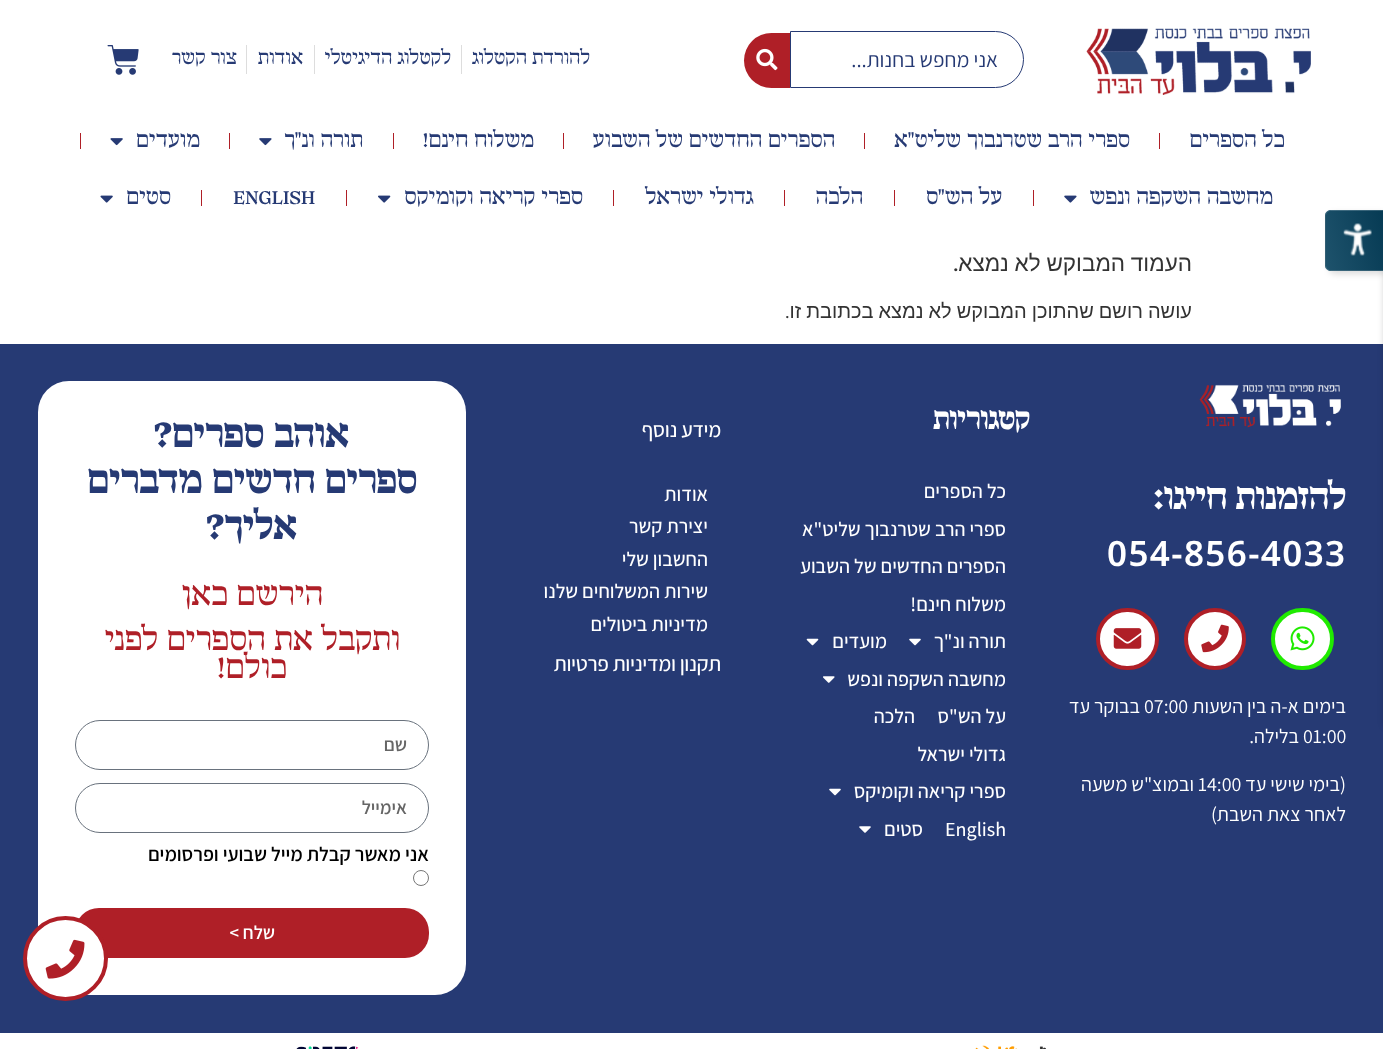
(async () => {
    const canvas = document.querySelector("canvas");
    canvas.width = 1383;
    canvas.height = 1049;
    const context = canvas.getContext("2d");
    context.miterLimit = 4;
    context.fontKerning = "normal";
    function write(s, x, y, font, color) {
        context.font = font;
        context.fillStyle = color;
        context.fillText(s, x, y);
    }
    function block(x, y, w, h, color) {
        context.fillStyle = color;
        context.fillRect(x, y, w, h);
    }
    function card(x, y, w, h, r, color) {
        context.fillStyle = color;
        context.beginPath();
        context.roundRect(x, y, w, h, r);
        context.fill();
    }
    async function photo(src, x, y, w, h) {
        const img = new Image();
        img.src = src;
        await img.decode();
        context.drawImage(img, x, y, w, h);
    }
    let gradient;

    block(0, 0, 1383, 1049, "rgb(255, 255, 255)");
    await photo("media/1.png", 1086, 28, 225, 67);
    context.beginPath();
    context.roundRect(790.5, 31.5, 233, 56, [0, 28, 28, 0]);
    context.strokeStyle = "rgb(38, 58, 116)";
    context.stroke();
    context.direction = "rtl";
    write("אני מחפש בחנות...", 998, 67, "21.25px Assistant", "rgb(38, 58, 116)");
    context.fillStyle = "rgb(175, 31, 39)";
    context.beginPath();
    context.roundRect(744, 33, 46, 55, [27.5, 0, 0, 27.5]);
    context.fill();
    await photo("media/2.png", 756, 48, 22, 23);
    write("להורדת הקטלוג", 590, 64, "18.75px 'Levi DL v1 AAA'", "rgb(38, 58, 116)");
    block(461, 45, 1, 29, "rgb(221, 221, 221)");
    write("לקטלוג הדיגיטלי", 451, 64, "18.75px 'Levi DL v1 AAA'", "rgb(38, 58, 116)");
    block(314, 45, 1, 29, "rgb(221, 221, 221)");
    write("אודות", 303, 64, "18.75px 'Levi DL v1 AAA'", "rgb(38, 58, 116)");
    block(246, 45, 1, 29, "rgb(221, 221, 221)");
    context.save();
    context.beginPath();
    context.roundRect(171, 45, 460, 29, 14.5);
    context.clip();
    write("צור קשר", 237, 64, "18.75px 'Levi DL v1 AAA'", "rgb(38, 58, 116)");
    context.restore();
    await photo("media/3.png", 107, 45, 32, 30);
    write("כל הספרים", 1285, 147, "21.25px 'Levi DL v1 AAA'", "rgb(38, 58, 116)");
    block(1159, 133, 1, 16, "rgb(175, 31, 39)");
    write("ספרי הרב שטרנבוך שליט\"א", 1130, 147, "21.25px 'Levi DL v1 AAA'", "rgb(38, 58, 116)");
    block(864, 133, 1, 16, "rgb(175, 31, 39)");
    write("הספרים החדשים של השבוע", 835, 147, "21.25px 'Levi DL v1 AAA'", "rgb(38, 58, 116)");
    block(563, 133, 1, 16, "rgb(175, 31, 39)");
    write("משלוח חינם!", 534, 147, "21.25px 'Levi DL v1 AAA'", "rgb(38, 58, 116)");
    block(393, 133, 1, 16, "rgb(175, 31, 39)");
    write("תורה ונ\"ך", 363, 147, "21.25px 'Levi DL v1 AAA'", "rgb(38, 58, 116)");
    await photo("media/4.png", 259, 138, 13, 8);
    block(229, 133, 1, 16, "rgb(175, 31, 39)");
    write("מועדים", 200, 147, "21.25px 'Levi DL v1 AAA'", "rgb(38, 58, 116)");
    await photo("media/5.png", 110, 138, 13, 8);
    block(80, 133, 1, 16, "rgb(175, 31, 39)");
    write("מחשבה השקפה ונפש", 1273, 204, "21.25px 'Levi DL v1 AAA'", "rgb(38, 58, 116)");
    await photo("media/6.png", 1064, 195, 13, 8);
    block(1033, 190, 1, 16, "rgb(175, 31, 39)");
    write("על הש\"ס", 1002, 204, "21.25px 'Levi DL v1 AAA'", "rgb(38, 58, 116)");
    block(894, 190, 1, 16, "rgb(175, 31, 39)");
    write("הלכה", 863, 204, "21.25px 'Levi DL v1 AAA'", "rgb(38, 58, 116)");
    block(784, 190, 1, 16, "rgb(175, 31, 39)");
    write("גדולי ישראל", 754, 204, "21.25px 'Levi DL v1 AAA'", "rgb(38, 58, 116)");
    block(613, 190, 1, 16, "rgb(175, 31, 39)");
    write("ספרי קריאה וקומיקס", 583, 204, "21.25px 'Levi DL v1 AAA'", "rgb(38, 58, 116)");
    await photo("media/7.png", 378, 195, 13, 8);
    block(346, 190, 1, 16, "rgb(175, 31, 39)");
    context.direction = "ltr";
    write("English", 233, 204, "21.25px 'Levi DL v1 AAA'", "rgb(38, 58, 116)");
    block(201, 190, 1, 16, "rgb(175, 31, 39)");
    context.direction = "rtl";
    write("סטים", 171, 204, "21.25px 'Levi DL v1 AAA'", "rgb(38, 58, 116)");
    await photo("media/8.png", 100, 195, 13, 8);
    context.fillStyle = "rgba(0, 0, 0, 0.14)";
    context.filter = "blur(3px)";
    context.beginPath();
    context.roundRect(1329, 213, 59, 61, 6);
    context.fill();
    context.filter = "none";
    block(0, 344, 1383, 689, "rgb(38, 58, 116)");
    context.fillStyle = "rgba(0, 1, 1, 0.2)";
    context.filter = "blur(3px)";
    context.beginPath();
    context.roundRect(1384, 216, 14, 512, 6);
    context.fill();
    context.filter = "none";
    context.fillStyle = "rgb(9, 90, 129)";
    context.beginPath();
    context.moveTo(1331, 210);
    context.lineTo(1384, 210);
    context.lineTo(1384, 271);
    context.lineTo(1331, 271);
    context.bezierCurveTo(1327.5, 271, 1325, 268.5, 1325, 265);
    context.lineTo(1325, 216);
    context.bezierCurveTo(1325, 212.5, 1327.5, 210, 1331, 210);
    context.closePath();
    context.fill();
    context.save();
    context.beginPath();
    context.moveTo(1331, 210);
    context.lineTo(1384, 210);
    context.lineTo(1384, 271);
    context.lineTo(1331, 271);
    context.bezierCurveTo(1327.5, 271, 1325, 268.5, 1325, 265);
    context.lineTo(1325, 216);
    context.bezierCurveTo(1325, 212.5, 1327.5, 210, 1331, 210);
    context.closePath();
    context.clip();
    gradient = context.createLinearGradient(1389, 173, 1321, 191);
    gradient.addColorStop(0.01, "rgba(0, 0, 0, 0.35)");
    gradient.addColorStop(0.98, "rgba(67, 67, 67, 0.35)");
    context.fillStyle = gradient;
    context.fillRect(1326, 210, 57, 1);
    gradient = context.createLinearGradient(1332, 232, 1263, 250);
    gradient.addColorStop(0.01, "rgba(0, 0, 0, 0.35)");
    gradient.addColorStop(0.98, "rgba(67, 67, 67, 0.35)");
    context.fillStyle = gradient;
    context.fillRect(1325, 211, 1, 59);
    gradient = context.createLinearGradient(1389, 232, 1321, 250);
    gradient.addColorStop(0.01, "rgba(0, 0, 0, 0.35)");
    gradient.addColorStop(0.98, "rgba(67, 67, 67, 0.35)");
    context.fillStyle = gradient;
    context.fillRect(1326, 211, 57, 59);
    gradient = context.createLinearGradient(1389, 290, 1321, 308);
    gradient.addColorStop(0.01, "rgba(0, 0, 0, 0.35)");
    gradient.addColorStop(0.98, "rgba(67, 67, 67, 0.35)");
    context.fillStyle = gradient;
    context.fillRect(1326, 270, 57, 1);
    context.restore();
    context.fillStyle = "rgba(255, 255, 255, 0.17)";
    context.beginPath();
    context.moveTo(1331, 210);
    context.lineTo(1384, 210);
    context.lineTo(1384, 271);
    context.lineTo(1331, 271);
    context.bezierCurveTo(1328, 271, 1325, 268, 1325, 265);
    context.lineTo(1325, 216);
    context.bezierCurveTo(1325, 213, 1328, 210, 1331, 210);
    context.closePath();
    context.moveTo(1331, 211);
    context.lineTo(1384, 211);
    context.lineTo(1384, 270);
    context.lineTo(1331, 270);
    context.bezierCurveTo(1328, 270, 1326, 268, 1326, 265);
    context.lineTo(1326, 216);
    context.bezierCurveTo(1326, 213, 1328, 211, 1331, 211);
    context.closePath();
    context.fill("evenodd");
    await photo("media/9.png", 1343, 223, 29, 33);
    context.wordSpacing = "-0.5px";
    write("העמוד המבוקש לא נמצא", 1192, 271, "22.5px Liberation Sans", "rgb(51, 51, 51)");
    context.wordSpacing = "0px";
    write(".", 959, 271, "500 22.5px Roboto", "rgb(51, 51, 51)");
    context.wordSpacing = "-0.5px";
    write("עושה רושם שהתוכן המבוקש לא נמצא בכתובת זו", 1192, 318, "20px Liberation Sans", "rgb(51, 51, 51)");
    context.wordSpacing = "0px";
    write(".", 790, 318, "20px Roboto", "rgb(51, 51, 51)");
    await photo("media/10.png", 1199, 384, 142, 44);
    context.letterSpacing = "-0.25px";
    write("להזמנות חייגו:", 1346, 509, "bold 35px 'Levi DL v1 AAA'", "rgb(255, 255, 255)");
    context.letterSpacing = "1.4px";
    context.direction = "ltr";
    write("054-856-4033", 1107, 566, "600 35px Noto Sans Armenian", "rgb(255, 255, 255)");
    context.beginPath();
    context.roundRect(1273, 610, 59, 58, 29);
    context.fill();
    context.strokeStyle = "rgb(32, 235, 0)";
    context.lineWidth = 4;
    context.stroke();
    await photo("media/11.png", 1290, 626, 25, 25);
    context.beginPath();
    context.arc(1215, 639, 29, 0, Math.PI * 2);
    context.fill();
    context.strokeStyle = "rgb(175, 31, 39)";
    context.stroke();
    await photo("media/12.png", 1201, 624, 28, 29);
    context.beginPath();
    context.roundRect(1098, 610, 59, 58, 29);
    context.fill();
    context.stroke();
    await photo("media/13.png", 1113, 628, 29, 21);
    context.letterSpacing = "0px";
    context.direction = "rtl";
    write("בימים א-ה בין השעות", 1346, 713, "20px Assistant", "rgb(255, 255, 255)");
    context.direction = "ltr";
    write("07:00", 1144, 713, "20px Assistant", "rgb(255, 255, 255)");
    context.direction = "rtl";
    write("בבוקר עד", 1140, 713, "20px Assistant", "rgb(255, 255, 255)");
    context.direction = "ltr";
    write("01:00", 1303, 743, "20px Assistant", "rgb(255, 255, 255)");
    context.direction = "rtl";
    write("בלילה.", 1299, 743, "20px Assistant", "rgb(255, 255, 255)");
    write("(בימי שישי עד", 1346, 791, "20px Assistant", "rgb(255, 255, 255)");
    context.direction = "ltr";
    write("14:00", 1198, 791, "20px Assistant", "rgb(255, 255, 255)");
    context.direction = "rtl";
    write("ובמוצ\"ש משעה", 1194, 791, "20px Assistant", "rgb(255, 255, 255)");
    write("לאחר צאת השבת)", 1346, 821, "20px Assistant", "rgb(255, 255, 255)");
    context.letterSpacing = "-0.25px";
    write("קטגוריות", 1030, 429, "bold 29px 'Levi DL v1 AAA'", "rgb(255, 255, 255)");
    context.letterSpacing = "0px";
    write("כל הספרים", 1006, 498, "500 20px Assistant", "rgb(255, 255, 255)");
    write("ספרי הרב שטרנבוך שליט\"א", 1006, 536, "500 20px Assistant", "rgb(255, 255, 255)");
    write("הספרים החדשים של השבוע", 1006, 573, "500 20px Assistant", "rgb(255, 255, 255)");
    write("משלוח חינם!", 1006, 611, "500 20px Assistant", "rgb(255, 255, 255)");
    write("תורה ונ\"ך", 1006, 648, "500 20px Assistant", "rgb(255, 255, 255)");
    await photo("media/14.png", 909, 638, 12, 8);
    write("מועדים", 887, 648, "500 20px Assistant", "rgb(255, 255, 255)");
    await photo("media/15.png", 806, 638, 13, 8);
    write("מחשבה השקפה ונפש", 1006, 686, "500 20px Assistant", "rgb(255, 255, 255)");
    await photo("media/16.png", 823, 676, 12, 7);
    write("על הש\"ס", 1006, 723, "500 20px Assistant", "rgb(255, 255, 255)");
    write("הלכה", 915, 723, "500 20px Assistant", "rgb(255, 255, 255)");
    write("גדולי ישראל", 1006, 761, "500 20px Assistant", "rgb(255, 255, 255)");
    write("ספרי קריאה וקומיקס", 1006, 798, "500 20px Assistant", "rgb(255, 255, 255)");
    await photo("media/14.png", 829, 788, 12, 8);
    context.direction = "ltr";
    write("English", 945, 836, "500 20px Assistant", "rgb(255, 255, 255)");
    context.direction = "rtl";
    write("סטים", 923, 836, "500 20px Assistant", "rgb(255, 255, 255)");
    await photo("media/17.png", 859, 826, 12, 7);
    context.letterSpacing = "-0.25px";
    write("מידע נוסף", 721, 437, "500 21.25px Assistant", "rgb(255, 255, 255)");
    context.letterSpacing = "0px";
    write("אודות", 708, 501, "500 20px Assistant", "rgb(255, 255, 255)");
    write("יצירת קשר", 708, 533, "500 20px Assistant", "rgb(255, 255, 255)");
    write("החשבון שלי", 708, 566, "500 20px Assistant", "rgb(255, 255, 255)");
    write("שירות המשלוחים שלנו", 708, 598, "500 20px Assistant", "rgb(255, 255, 255)");
    write("מדיניות ביטולים", 708, 631, "500 20px Assistant", "rgb(255, 255, 255)");
    context.letterSpacing = "-0.25px";
    write("תקנון ומדיניות פרטיות", 721, 671, "500 21.25px Assistant", "rgb(255, 255, 255)");
    card(38, 381, 428, 614, 31, "rgb(255, 255, 255)");
    context.fillStyle = "rgb(175, 31, 39)";
    context.beginPath();
    context.roundRect(75, 908, 354, 50, [24, 24, 24, 26]);
    context.fill();
    context.fillStyle = "rgb(255, 255, 255)";
    context.beginPath();
    context.arc(65.5, 958.5, 40.5, 0, Math.PI * 2);
    context.fill();
    context.stroke();
    await photo("media/18.png", 45, 939, 40, 40);
    context.letterSpacing = "0px";
    write("אוהב ספרים?", 349, 447, "bold 37.5px 'Levi DL v1 AAA'", "rgb(38, 58, 116)");
    write("ספרים חדשים מדברים", 417, 493, "bold 37.5px 'Levi DL v1 AAA'", "rgb(38, 58, 116)");
    write("אליך?", 297, 539, "bold 37.5px 'Levi DL v1 AAA'", "rgb(38, 58, 116)");
    write("הירשם כאן", 323, 605, "31.25px 'Levi DL v1 AAA'", "rgb(175, 31, 39)");
    write("ותקבל את הספרים לפני", 400, 650, "31.25px 'Levi DL v1 AAA'", "rgb(175, 31, 39)");
    write("כולם!", 287, 678, "31.25px 'Levi DL v1 AAA'", "rgb(175, 31, 39)");
    context.beginPath();
    context.roundRect(75.5, 720.5, 353, 49, 24.5);
    context.strokeStyle = "rgb(105, 114, 125)";
    context.lineWidth = 1;
    context.stroke();
    write("שם", 407, 751, "600 18.75px Assistant", "rgb(102, 102, 102)");
    context.beginPath();
    context.roundRect(75.5, 783.5, 353, 49, 24.5);
    context.stroke();
    write("אימייל", 407, 814, "600 18.75px Assistant", "rgb(102, 102, 102)");
    write("אני מאשר קבלת מייל שבועי ופרסומים", 429, 861, "600 20px Assistant", "rgb(0, 0, 0)");
    context.beginPath();
    context.arc(421, 878, 7.5, 0, Math.PI * 2);
    context.strokeStyle = "rgb(118, 118, 118)";
    context.stroke();
    write("שלח >", 275, 939, "600 18.75px Assistant", "rgb(255, 255, 255)");
    await photo("media/19.png", 975, 1045, 71, 4);
    await photo("media/20.png", 296, 1046, 63, 3);
})();
